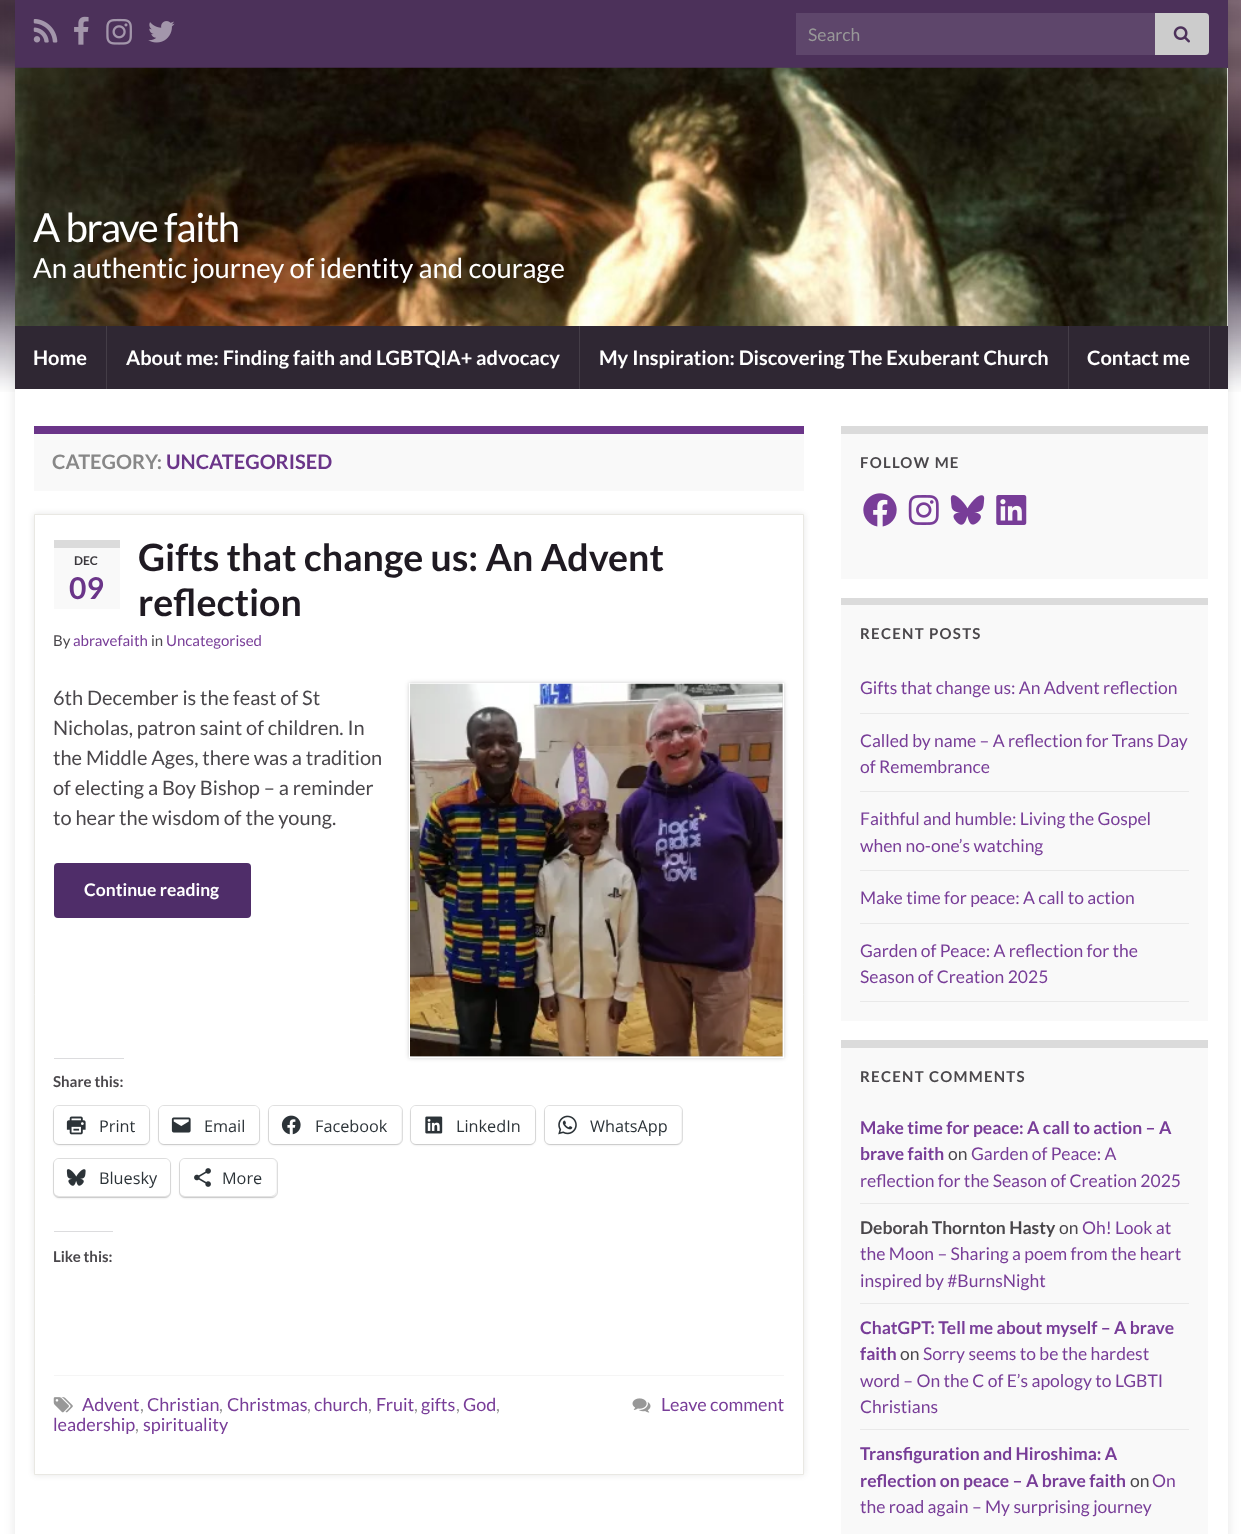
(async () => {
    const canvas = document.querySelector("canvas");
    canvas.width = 1241;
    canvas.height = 1534;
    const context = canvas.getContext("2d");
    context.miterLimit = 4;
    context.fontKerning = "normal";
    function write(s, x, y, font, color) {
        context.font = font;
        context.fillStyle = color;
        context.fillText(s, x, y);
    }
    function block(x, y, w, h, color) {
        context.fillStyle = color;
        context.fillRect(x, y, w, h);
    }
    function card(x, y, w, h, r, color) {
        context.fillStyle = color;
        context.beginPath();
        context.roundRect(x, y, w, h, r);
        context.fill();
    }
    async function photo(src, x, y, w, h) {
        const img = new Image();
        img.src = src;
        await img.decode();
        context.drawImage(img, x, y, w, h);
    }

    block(0, 0, 1241, 1534, "rgb(255, 255, 255)");
    await photo("media/1.png", 0, 0, 1241, 392);
    context.fillStyle = "rgba(0, 0, 0, 0.1)";
    context.filter = "blur(6px)";
    context.beginPath();
    context.rect(15, 0, 1213, 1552);
    context.fill();
    context.filter = "none";
    block(15, 0, 1213, 68, "rgb(76, 49, 90)");
    await photo("media/2.png", 33, 19, 25, 24);
    await photo("media/3.png", 74, 16, 15, 29);
    await photo("media/4.png", 106, 18, 26, 27);
    await photo("media/5.png", 148, 21, 27, 22);
    block(796, 13, 359, 42, "rgb(94, 70, 107)");
    write("Search", 808, 41, "17.5px Lato", "rgb(152, 152, 152)");
    context.fillStyle = "rgb(204, 204, 204)";
    context.beginPath();
    context.roundRect(1155, 13, 54, 42, [0, 4, 4, 0]);
    context.fill();
    await photo("media/6.png", 1173, 26, 17, 17);
    block(1227, 68, 1, 258, "rgb(255, 255, 255)");
    await photo("media/7.png", 15, 67, 1213, 259);
    block(15, 326, 1213, 63, "rgb(47, 39, 51)");
    context.letterSpacing = "-1.25px";
    write("A brave faith", 33, 242, "40px Lato", "rgb(255, 255, 255)");
    context.letterSpacing = "0px";
    write("An authentic journey of identity and courage", 33, 278, "27.5px Lato", "rgb(255, 255, 255)");
    block(106, 326, 1, 63, "rgb(68, 61, 71)");
    write("Home", 33, 365, "bold 20px Lato", "rgb(255, 255, 255)");
    block(579, 326, 1, 63, "rgb(68, 61, 71)");
    write("About me: Finding faith and LGBTQIA+ advocacy", 126, 365, "bold 20px Lato", "rgb(255, 255, 255)");
    block(1068, 326, 1, 63, "rgb(68, 61, 71)");
    write("My Inspiration: Discovering The Exuberant Church", 599, 365, "bold 20px Lato", "rgb(255, 255, 255)");
    block(1209, 326, 1, 63, "rgb(68, 61, 71)");
    write("Contact me", 1087, 365, "bold 20px Lato", "rgb(255, 255, 255)");
    block(15, 389, 1213, 1145, "rgb(255, 255, 255)");
    block(34, 434, 770, 57, "rgb(249, 249, 249)");
    block(34, 426, 770, 8, "rgb(107, 53, 137)");
    write("CATEGORY:", 52, 469, "bold 20px Lato", "rgb(136, 136, 136)");
    write("UNCATEGORISED", 166, 469, "bold 20px Lato", "rgb(107, 53, 137)");
    context.fillStyle = "rgba(0, 0, 0, 0.1)";
    context.filter = "blur(3px)";
    context.beginPath();
    context.rect(34, 514, 770, 961);
    context.fill();
    context.filter = "none";
    context.fillStyle = "rgb(255, 255, 255)";
    context.beginPath();
    context.rect(34.5, 514.5, 769, 960);
    context.fill();
    context.strokeStyle = "rgb(233, 232, 227)";
    context.stroke();
    block(54, 548, 66, 61, "rgb(249, 249, 249)");
    block(54, 540, 66, 8, "rgb(219, 219, 219)");
    write("DEC", 74, 565, "bold 12px Lato", "rgb(59, 56, 61)");
    write("09", 69, 599, "bold 30px Lato", "rgb(107, 53, 137)");
    write("Gifts that change us: An Advent", 138, 571, "bold 37.5px Lato", "rgb(31, 26, 34)");
    write("reflection", 138, 616, "bold 37.5px Lato", "rgb(31, 26, 34)");
    write("By", 53, 646, "15px Lato", "rgb(74, 71, 75)");
    write("abravefaith", 73, 646, "15px Lato", "rgb(120, 61, 152)");
    write("in", 151, 646, "15px Lato", "rgb(74, 71, 75)");
    write("Uncategorised", 166, 646, "15px Lato", "rgb(120, 61, 152)");
    write("6th December is the feast of St", 53, 705, "20px Lato", "rgb(74, 71, 75)");
    write("Nicholas, patron saint of children. In", 53, 735, "20px Lato", "rgb(74, 71, 75)");
    write("the Middle Ages, there was a tradition", 53, 765, "20px Lato", "rgb(74, 71, 75)");
    write("of electing a Boy Bishop – a reminder", 53, 795, "20px Lato", "rgb(74, 71, 75)");
    write("to hear the wisdom of the young.", 53, 825, "20px Lato", "rgb(74, 71, 75)");
    context.fillStyle = "rgba(0, 0, 0, 0.2)";
    context.filter = "blur(2px)";
    context.beginPath();
    context.rect(409, 683, 375, 375);
    context.fill();
    context.filter = "none";
    context.strokeStyle = "rgb(255, 255, 255)";
    context.strokeRect(409.5, 683.5, 374, 374);
    await photo("media/8.png", 410, 683, 373, 374);
    card(54, 863, 197, 55, 4, "rgb(79, 45, 105)");
    write("Continue reading", 84, 896, "bold 17.5px Lato", "rgb(255, 255, 255)");
    block(54, 1058, 70, 1, "rgb(220, 220, 222)");
    write("Share this:", 53, 1087, "bold 15px Lato", "rgb(74, 71, 75)");
    context.beginPath();
    context.roundRect(53.5, 1105.5, 96, 39, 5.5);
    context.strokeStyle = "rgb(224, 224, 224)";
    context.stroke();
    context.fillStyle = "rgba(0, 0, 0, 0.12)";
    context.filter = "blur(1px)";
    context.beginPath();
    context.roundRect(54, 1108, 95, 37, 5);
    context.fill();
    context.filter = "none";
    card(54, 1106, 95, 38, 5, "rgb(255, 255, 255)");
    await photo("media/9.png", 66, 1116, 20, 19);
    write("Print", 99, 1132, "16.25px Open Sans", "rgb(44, 51, 56)");
    context.beginPath();
    context.roundRect(158.5, 1105.5, 101, 39, 5.5);
    context.stroke();
    context.fillStyle = "rgba(0, 0, 0, 0.12)";
    context.filter = "blur(1px)";
    context.beginPath();
    context.roundRect(159, 1108, 100, 37, 5);
    context.fill();
    context.filter = "none";
    card(159, 1106, 100, 38, 5, "rgb(255, 255, 255)");
    await photo("media/10.png", 171, 1117, 20, 16);
    write("Email", 204, 1132, "16.25px Open Sans", "rgb(44, 51, 56)");
    context.beginPath();
    context.roundRect(268.5, 1105.5, 134, 39, 5.5);
    context.stroke();
    context.fillStyle = "rgba(0, 0, 0, 0.12)";
    context.filter = "blur(1px)";
    context.beginPath();
    context.roundRect(269, 1108, 132, 37, 5);
    context.fill();
    context.filter = "none";
    card(269, 1106, 132, 38, 5, "rgb(255, 255, 255)");
    await photo("media/11.png", 281, 1115, 20, 20);
    write("Facebook", 315, 1132, "16.25px Open Sans", "rgb(44, 51, 56)");
    context.beginPath();
    context.roundRect(410.5, 1105.5, 125, 39, 5.5);
    context.stroke();
    context.fillStyle = "rgba(0, 0, 0, 0.12)";
    context.filter = "blur(1px)";
    context.beginPath();
    context.roundRect(411, 1108, 124, 37, 5);
    context.fill();
    context.filter = "none";
    card(411, 1106, 124, 38, 5, "rgb(255, 255, 255)");
    await photo("media/12.png", 425, 1116, 18, 18);
    write("LinkedIn", 456, 1132, "16.25px Open Sans", "rgb(44, 51, 56)");
    context.beginPath();
    context.roundRect(544.5, 1105.5, 138, 39, 5.5);
    context.stroke();
    context.fillStyle = "rgba(0, 0, 0, 0.12)";
    context.filter = "blur(1px)";
    context.beginPath();
    context.roundRect(545, 1108, 136, 37, 5);
    context.fill();
    context.filter = "none";
    card(545, 1106, 136, 38, 5, "rgb(255, 255, 255)");
    await photo("media/13.png", 558, 1115, 19, 20);
    write("WhatsApp", 590, 1132, "16.25px Open Sans", "rgb(44, 51, 56)");
    context.beginPath();
    context.roundRect(53.5, 1158.5, 117, 39, 5.5);
    context.stroke();
    context.fillStyle = "rgba(0, 0, 0, 0.12)";
    context.filter = "blur(1px)";
    context.beginPath();
    context.roundRect(54, 1160, 116, 38, 5);
    context.fill();
    context.filter = "none";
    card(54, 1159, 116, 37, 5, "rgb(255, 255, 255)");
    await photo("media/14.png", 66, 1169, 20, 17);
    write("Bluesky", 99, 1184, "16.25px Open Sans", "rgb(44, 51, 56)");
    context.beginPath();
    context.roundRect(179.5, 1158.5, 98, 39, 5.5);
    context.stroke();
    context.fillStyle = "rgba(0, 0, 0, 0.12)";
    context.filter = "blur(1px)";
    context.beginPath();
    context.roundRect(180, 1160, 96, 38, 5);
    context.fill();
    context.filter = "none";
    card(180, 1159, 96, 37, 5, "rgb(255, 255, 255)");
    await photo("media/15.png", 194, 1168, 17, 19);
    write("More", 222, 1184, "16.25px Open Sans", "rgb(44, 51, 56)");
    block(54, 1231, 59, 1, "rgb(220, 220, 222)");
    write("Like this:", 53, 1262, "bold 15px Lato", "rgb(74, 71, 75)");
    block(54, 1375, 730, 1, "rgb(245, 245, 245)");
    await photo("media/16.png", 53, 1397, 20, 16);
    write("Advent", 82, 1411, "18px Lato", "rgb(120, 61, 152)");
    write(",", 140, 1411, "18px Lato", "rgb(152, 152, 152)");
    write("Christian", 147, 1411, "18px Lato", "rgb(120, 61, 152)");
    write(",", 219, 1411, "18px Lato", "rgb(152, 152, 152)");
    write("Christmas", 227, 1411, "18px Lato", "rgb(120, 61, 152)");
    write(",", 307, 1411, "18px Lato", "rgb(152, 152, 152)");
    write("church", 314, 1411, "18px Lato", "rgb(120, 61, 152)");
    write(",", 368, 1411, "18px Lato", "rgb(152, 152, 152)");
    write("Fruit", 376, 1411, "18px Lato", "rgb(120, 61, 152)");
    write(",", 414, 1411, "18px Lato", "rgb(152, 152, 152)");
    write("gifts", 421, 1411, "18px Lato", "rgb(120, 61, 152)");
    write(",", 456, 1411, "18px Lato", "rgb(152, 152, 152)");
    write("God", 463, 1411, "18px Lato", "rgb(120, 61, 152)");
    write(",", 496, 1411, "18px Lato", "rgb(152, 152, 152)");
    write("leadership", 53, 1431, "18px Lato", "rgb(120, 61, 152)");
    write(",", 135, 1431, "18px Lato", "rgb(152, 152, 152)");
    write("spirituality", 143, 1431, "18px Lato", "rgb(120, 61, 152)");
    await photo("media/17.png", 632, 1398, 19, 15);
    write("Leave comment", 661, 1411, "18px Lato", "rgb(120, 61, 152)");
    block(841, 434, 367, 145, "rgb(249, 249, 249)");
    block(841, 426, 367, 8, "rgb(219, 219, 219)");
    context.letterSpacing = "1.25px";
    write("FOLLOW ME", 860, 468, "bold 15px Lato", "rgb(74, 71, 75)");
    await photo("media/18.png", 863, 493, 34, 34);
    await photo("media/19.png", 908, 495, 31, 30);
    await photo("media/20.png", 950, 495, 35, 30);
    await photo("media/21.png", 996, 495, 31, 30);
    block(841, 605, 367, 416, "rgb(249, 249, 249)");
    block(841, 598, 367, 7, "rgb(219, 219, 219)");
    write("RECENT POSTS", 860, 639, "bold 15px Lato", "rgb(74, 71, 75)");
    block(860, 713, 329, 1, "rgb(233, 233, 233)");
    context.letterSpacing = "0px";
    write("Gifts that change us: An Advent reflection", 860, 694, "17.5px Lato", "rgb(120, 61, 152)");
    block(860, 791, 329, 1, "rgb(233, 233, 233)");
    write("Called by name – A reflection for Trans Day", 860, 747, "17.5px Lato", "rgb(120, 61, 152)");
    write("of Remembrance", 860, 773, "17.5px Lato", "rgb(120, 61, 152)");
    block(860, 870, 329, 1, "rgb(233, 233, 233)");
    write("Faithful and humble: Living the Gospel", 860, 825, "17.5px Lato", "rgb(120, 61, 152)");
    write("when no-one’s watching", 860, 852, "17.5px Lato", "rgb(120, 61, 152)");
    block(860, 923, 329, 1, "rgb(233, 233, 233)");
    write("Make time for peace: A call to action", 860, 904, "17.5px Lato", "rgb(120, 61, 152)");
    block(860, 1001, 329, 1, "rgb(233, 233, 233)");
    write("Garden of Peace: A reflection for the", 860, 957, "17.5px Lato", "rgb(120, 61, 152)");
    write("Season of Creation 2025", 860, 983, "17.5px Lato", "rgb(120, 61, 152)");
    block(841, 1048, 367, 486, "rgb(249, 249, 249)");
    block(841, 1040, 367, 8, "rgb(219, 219, 219)");
    context.letterSpacing = "1.25px";
    write("RECENT COMMENTS", 860, 1082, "bold 15px Lato", "rgb(74, 71, 75)");
    block(860, 1203, 329, 1, "rgb(233, 233, 233)");
    context.letterSpacing = "0px";
    write("Make time for peace: A call to action – A", 860, 1134, "bold 17.5px Lato", "rgb(120, 61, 152)");
    write("brave faith", 860, 1160, "bold 17.5px Lato", "rgb(120, 61, 152)");
    write("on", 948, 1160, "17.5px Lato", "rgb(74, 71, 75)");
    write("Garden of Peace: A", 971, 1160, "17.5px Lato", "rgb(120, 61, 152)");
    write("reflection for the Season of Creation 2025", 860, 1187, "17.5px Lato", "rgb(120, 61, 152)");
    block(860, 1303, 329, 1, "rgb(233, 233, 233)");
    write("Deborah Thornton Hasty", 860, 1234, "bold 17.5px Lato", "rgb(74, 71, 75)");
    write("on", 1059, 1234, "17.5px Lato", "rgb(74, 71, 75)");
    write("Oh! Look at", 1082, 1234, "17.5px Lato", "rgb(120, 61, 152)");
    write("the Moon – Sharing a poem from the heart", 860, 1260, "17.5px Lato", "rgb(120, 61, 152)");
    write("inspired by #BurnsNight", 860, 1287, "17.5px Lato", "rgb(120, 61, 152)");
    block(860, 1429, 329, 1, "rgb(233, 233, 233)");
    write("ChatGPT: Tell me about myself – A brave", 860, 1334, "bold 17.5px Lato", "rgb(120, 61, 152)");
    write("faith", 860, 1360, "bold 17.5px Lato", "rgb(120, 61, 152)");
    write("on", 900, 1360, "17.5px Lato", "rgb(74, 71, 75)");
    write("Sorry seems to be the hardest", 923, 1360, "17.5px Lato", "rgb(120, 61, 152)");
    write("word – On the C of E’s apology to LGBTI", 860, 1387, "17.5px Lato", "rgb(120, 61, 152)");
    write("Christians", 860, 1413, "17.5px Lato", "rgb(120, 61, 152)");
    write("Transfiguration and Hiroshima: A", 860, 1460, "bold 17.5px Lato", "rgb(120, 61, 152)");
    write("reflection on peace – A brave faith", 860, 1487, "bold 17.5px Lato", "rgb(120, 61, 152)");
    write("on", 1130, 1487, "17.5px Lato", "rgb(74, 71, 75)");
    write("On", 1152, 1487, "17.5px Lato", "rgb(120, 61, 152)");
    write("the road again – My surprising journey", 860, 1513, "17.5px Lato", "rgb(120, 61, 152)");
})();
